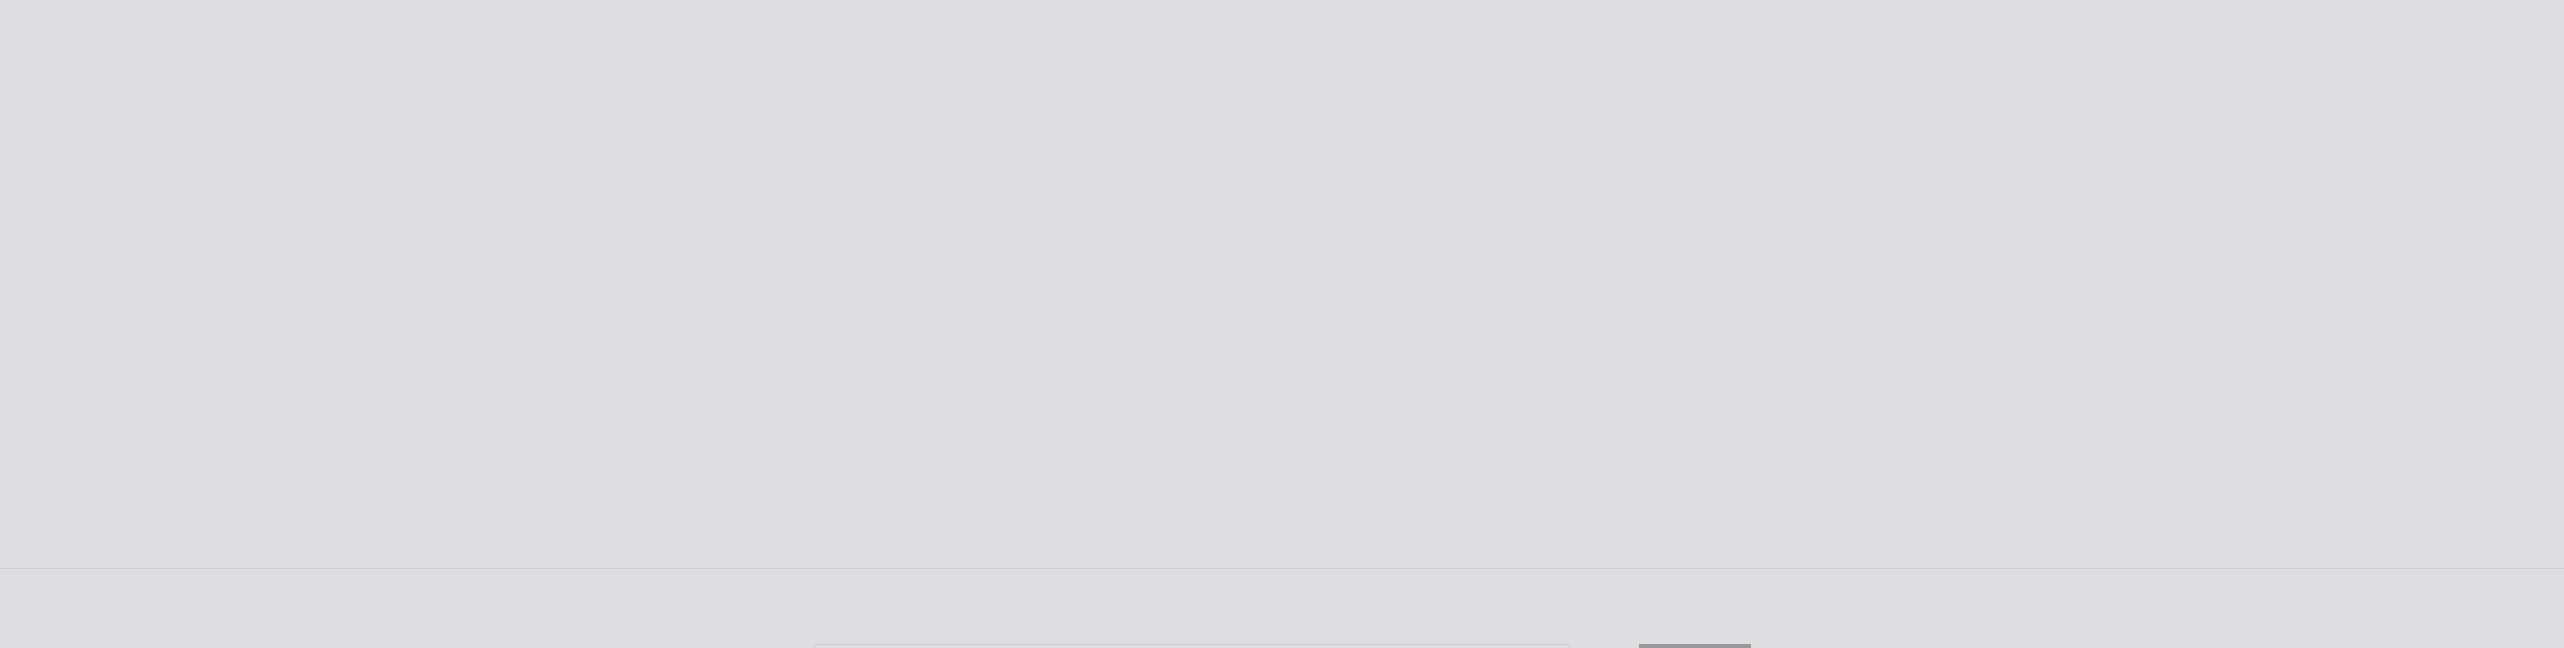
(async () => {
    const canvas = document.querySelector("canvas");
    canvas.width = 2564;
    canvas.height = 648;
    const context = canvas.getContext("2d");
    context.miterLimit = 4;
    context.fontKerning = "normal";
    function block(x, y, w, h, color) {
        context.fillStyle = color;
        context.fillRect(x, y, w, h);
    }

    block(0, 0, 2564, 648, "rgb(222, 222, 224)");
    block(0, 568, 2564, 1, "rgb(206, 206, 206)");
    context.strokeStyle = "rgb(206, 206, 206)";
    context.strokeRect(814.5, 644.5, 755, 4);
    block(1639, 644, 112, 4, "rgb(153, 153, 153)");
})();
